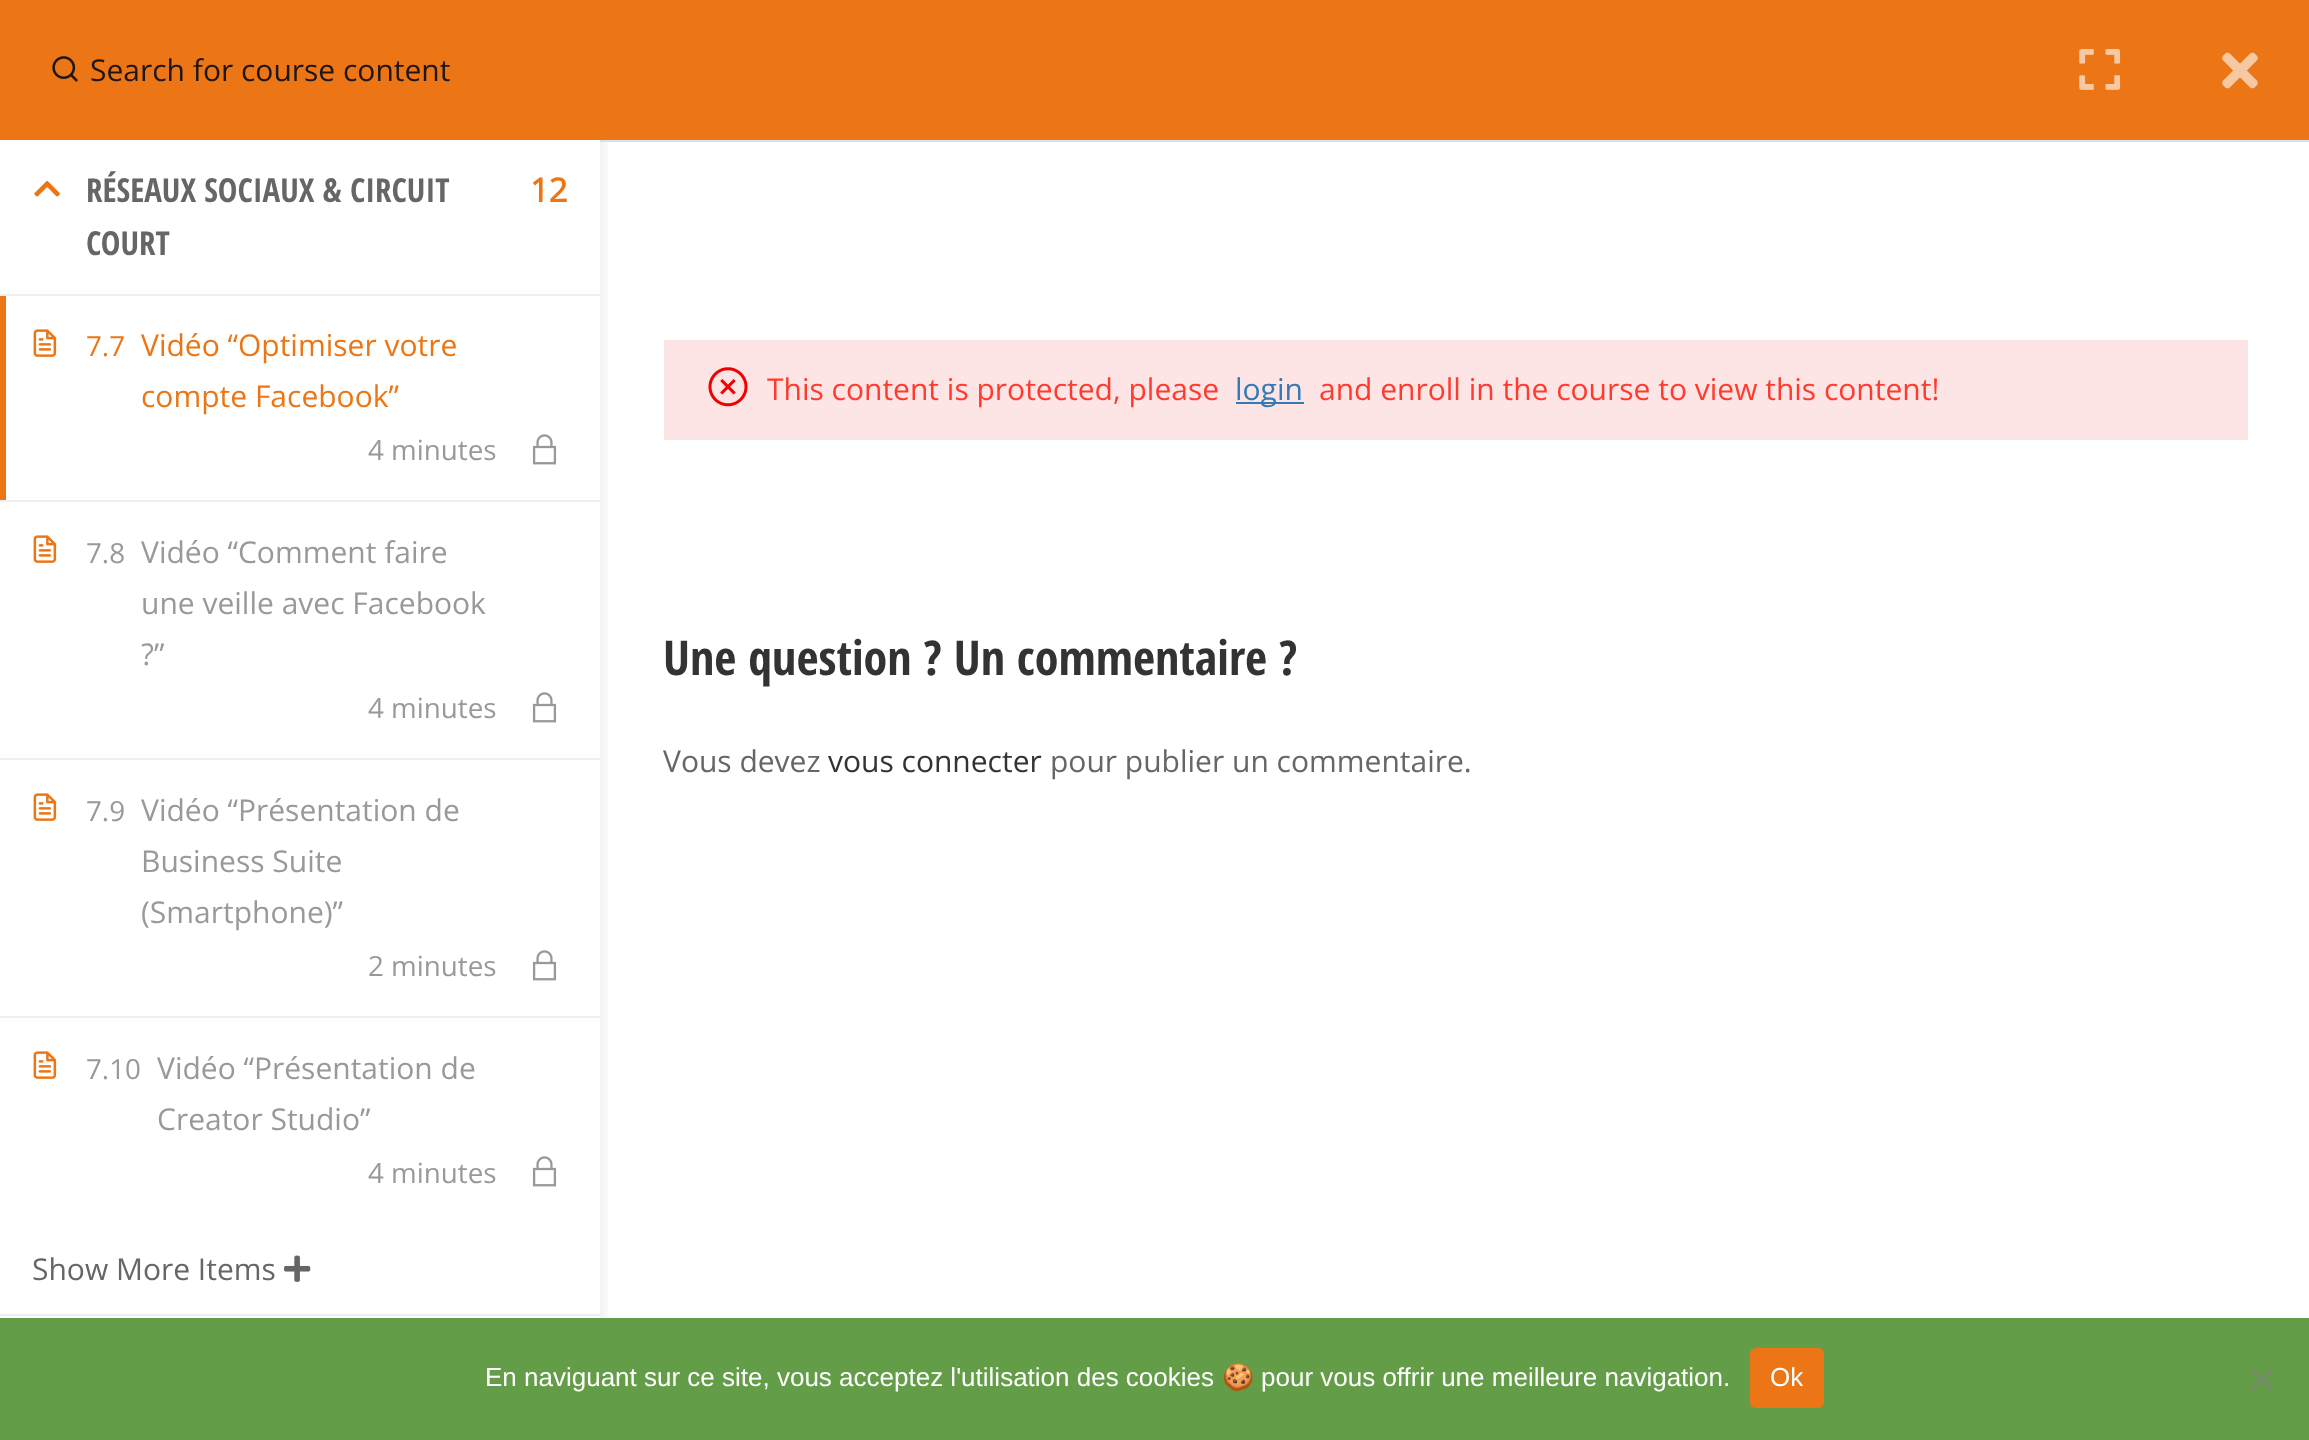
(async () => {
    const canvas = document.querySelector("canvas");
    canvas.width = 2309;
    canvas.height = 1440;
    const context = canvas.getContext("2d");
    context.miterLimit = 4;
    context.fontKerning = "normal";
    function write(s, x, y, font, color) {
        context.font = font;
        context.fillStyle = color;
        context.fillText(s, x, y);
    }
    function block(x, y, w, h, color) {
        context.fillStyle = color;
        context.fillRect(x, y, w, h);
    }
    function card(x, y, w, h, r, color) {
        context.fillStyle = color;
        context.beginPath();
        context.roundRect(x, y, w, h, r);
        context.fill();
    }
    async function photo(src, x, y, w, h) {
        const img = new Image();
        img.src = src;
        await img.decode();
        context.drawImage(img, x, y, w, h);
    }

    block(0, 0, 2309, 1440, "rgb(255, 255, 255)");
    context.save();
    context.beginPath();
    context.rect(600, 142, 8, 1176);
    context.clip();
    context.fillStyle = "rgba(0, 0, 0, 0.1)";
    context.filter = "blur(10px)";
    context.beginPath();
    context.rect(0, 4, 600, 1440);
    context.fill();
    context.filter = "none";
    context.restore();
    block(0, 0, 2309, 140, "rgb(236, 118, 21)");
    await photo("media/1.png", 52, 56, 26, 26);
    write("Search for course content", 90, 81, "30px Open Sans", "rgb(30, 22, 19)");
    block(0, 1314, 600, 2, "rgb(238, 238, 238)");
    await photo("media/2.png", 34, 181, 26, 16);
    write("RÉSEAUX SOCIAUX & CIRCUIT", 86, 202, "bold 33px Open Sans Condensed", "rgb(102, 102, 102)");
    write("COURT", 86, 255, "bold 33px Open Sans Condensed", "rgb(102, 102, 102)");
    write("12", 530, 202, "bold 33px Open Sans", "rgb(236, 118, 21)");
    block(0, 294, 600, 2, "rgb(238, 238, 238)");
    block(0, 296, 6, 204, "rgb(236, 118, 21)");
    await photo("media/3.png", 33, 329, 24, 28);
    write("7.7", 86, 356, "27.75px Open Sans", "rgb(236, 118, 21)");
    write("Vidéo “Optimiser votre", 141, 356, "30px Open Sans", "rgb(236, 118, 21)");
    write("compte Facebook”", 141, 407, "30px Open Sans", "rgb(236, 118, 21)");
    write("4 minutes", 368, 460, "27.75px Open Sans", "rgb(153, 153, 153)");
    await photo("media/4.png", 532, 434, 25, 31);
    block(0, 500, 600, 2, "rgb(238, 238, 238)");
    await photo("media/3.png", 33, 535, 24, 28);
    write("7.8", 86, 563, "27.75px Open Sans", "rgb(153, 153, 153)");
    write("Vidéo “Comment faire", 141, 563, "30px Open Sans", "rgb(153, 153, 153)");
    write("une veille avec Facebook", 141, 614, "30px Open Sans", "rgb(153, 153, 153)");
    write("?”", 141, 665, "30px Open Sans", "rgb(153, 153, 153)");
    write("4 minutes", 368, 718, "27.75px Open Sans", "rgb(153, 153, 153)");
    await photo("media/4.png", 532, 692, 25, 31);
    block(0, 758, 600, 2, "rgb(238, 238, 238)");
    await photo("media/3.png", 33, 793, 24, 28);
    write("7.9", 86, 821, "27.75px Open Sans", "rgb(153, 153, 153)");
    write("Vidéo “Présentation de", 141, 821, "30px Open Sans", "rgb(153, 153, 153)");
    write("Business Suite", 141, 872, "30px Open Sans", "rgb(153, 153, 153)");
    write("(Smartphone)”", 141, 923, "30px Open Sans", "rgb(153, 153, 153)");
    write("2 minutes", 368, 976, "27.75px Open Sans", "rgb(153, 153, 153)");
    await photo("media/4.png", 532, 950, 25, 31);
    block(0, 1016, 600, 2, "rgb(238, 238, 238)");
    await photo("media/3.png", 33, 1051, 24, 28);
    write("7.10", 86, 1079, "27.75px Open Sans", "rgb(153, 153, 153)");
    write("Vidéo “Présentation de", 157, 1079, "30px Open Sans", "rgb(153, 153, 153)");
    write("Creator Studio”", 157, 1130, "30px Open Sans", "rgb(153, 153, 153)");
    write("4 minutes", 368, 1183, "27.75px Open Sans", "rgb(153, 153, 153)");
    await photo("media/4.png", 532, 1156, 25, 31);
    write("Show More Items", 32, 1280, "30px Open Sans", "rgb(102, 102, 102)");
    await photo("media/5.png", 284, 1255, 27, 27);
    block(600, 140, 1709, 2, "rgb(217, 224, 241)");
    await photo("media/6.png", 2079, 49, 42, 41);
    await photo("media/7.png", 2222, 52, 36, 37);
    block(664, 340, 1584, 100, "rgb(254, 229, 229)");
    await photo("media/8.png", 708, 367, 40, 40);
    write("This content is protected, please", 767, 400, "30px Open Sans", "rgb(255, 59, 48)");
    block(1236, 402, 68, 2, "rgb(51, 122, 183)");
    write("login", 1235, 400, "30px Open Sans", "rgb(51, 122, 183)");
    write("and enroll in the course to view this content!", 1319, 400, "30px Open Sans", "rgb(255, 59, 48)");
    write("Une question ? Un commentaire ?", 663, 675, "bold 48px Open Sans Condensed", "rgb(51, 51, 51)");
    write("Vous devez", 663, 772, "30px Open Sans", "rgb(102, 102, 102)");
    write("vous connecter", 828, 772, "30px Open Sans", "rgb(51, 51, 51)");
    write("pour publier un commentaire.", 1050, 772, "30px Open Sans", "rgb(102, 102, 102)");
    block(0, 1318, 2309, 122, "rgb(100, 157, 72)");
    write("En naviguant sur ce site, vous acceptez l'utilisation des cookies", 485, 1386, "26px Liberation Sans", "rgb(255, 255, 255)");
    write("🍪", 1222, 1386, "26px Noto Color Emoji", "rgb(255, 255, 255)");
    write("pour vous offrir une meilleure navigation.", 1261, 1386, "26px Liberation Sans", "rgb(255, 255, 255)");
    card(1750, 1348, 74, 60, 6, "rgb(236, 118, 21)");
    write("Ok", 1770, 1386, "26px Liberation Sans", "rgb(255, 255, 255)");
    context.fillStyle = "rgb(114, 143, 100)";
    context.beginPath();
    context.moveTo(2271, 1367.5);
    context.lineTo(2274, 1370.5);
    context.lineTo(2253, 1391.5);
    context.lineTo(2250, 1388.5);
    context.closePath();
    context.fill();
    context.beginPath();
    context.moveTo(2250, 1370.5);
    context.lineTo(2253, 1367.5);
    context.lineTo(2274, 1388.5);
    context.lineTo(2271, 1391.5);
    context.closePath();
    context.fill();
})();
